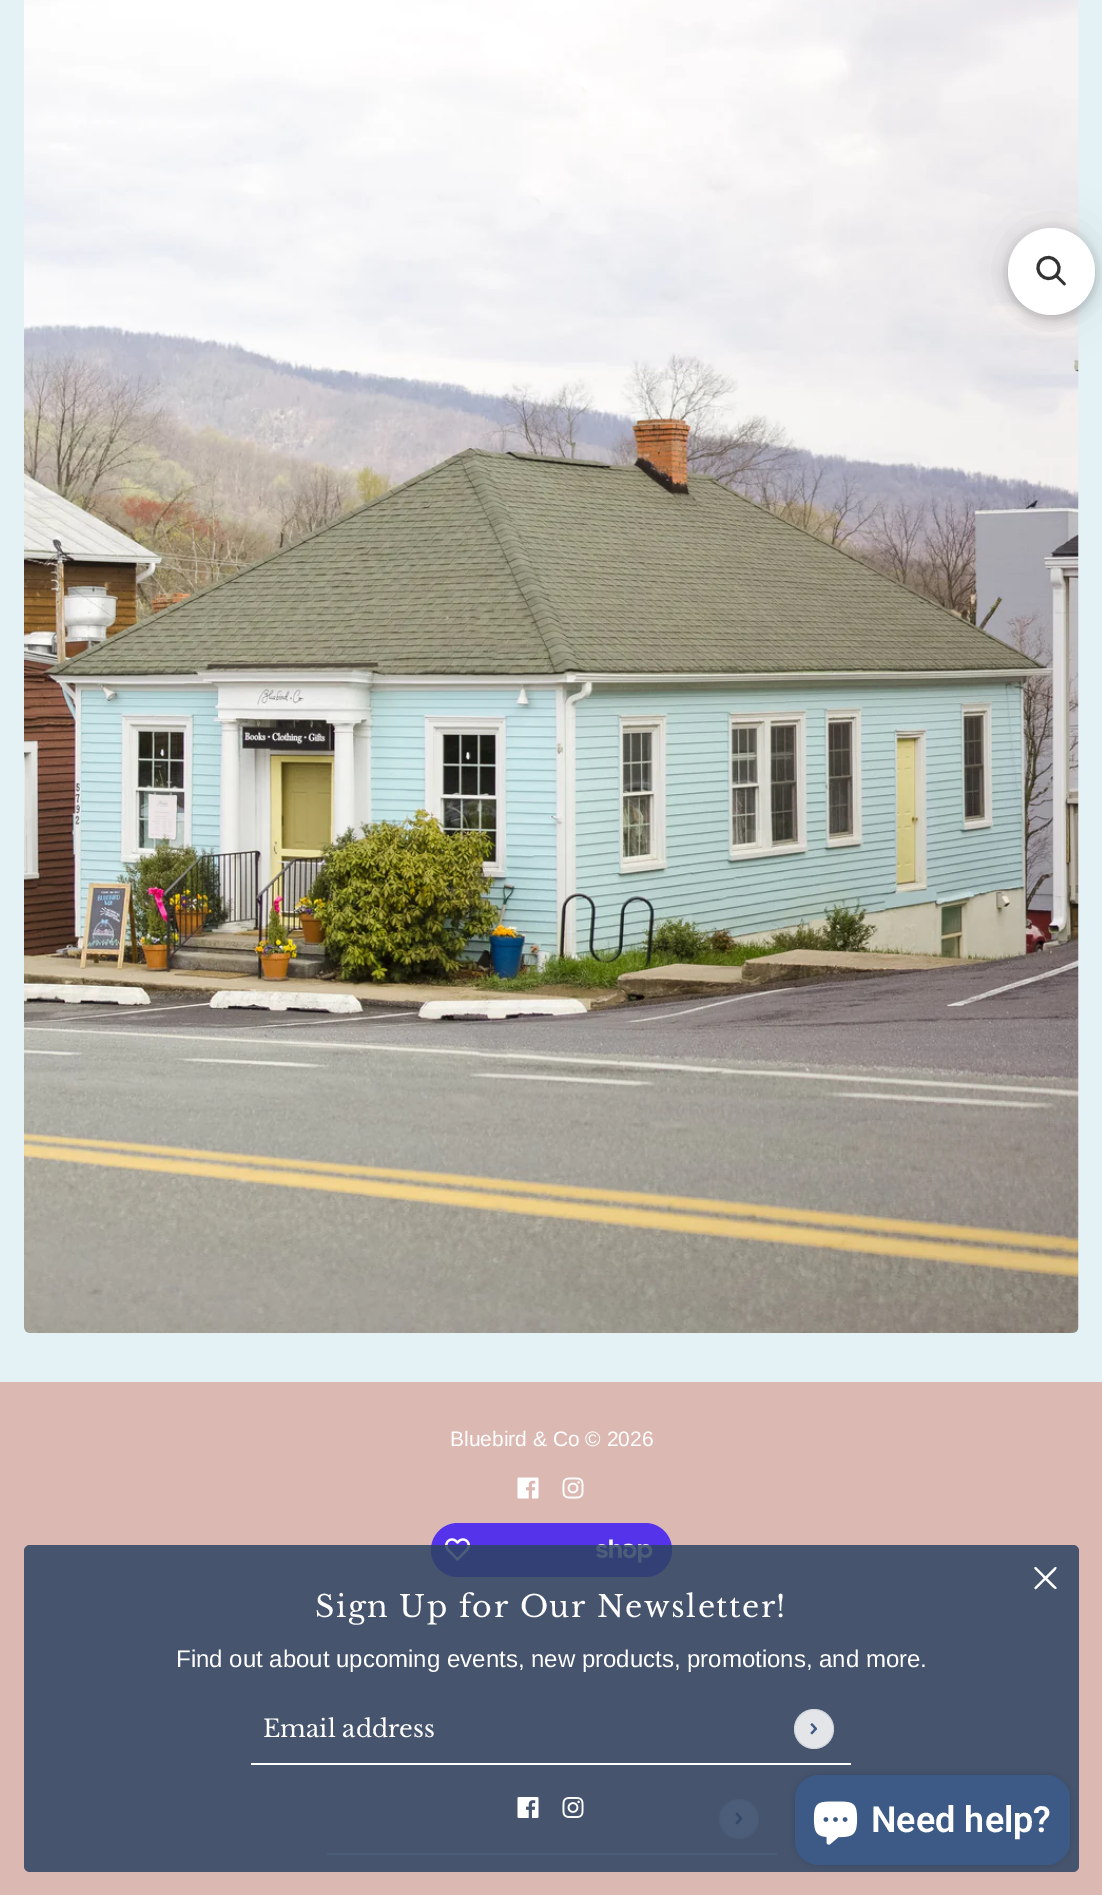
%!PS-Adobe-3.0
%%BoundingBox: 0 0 1102 1895
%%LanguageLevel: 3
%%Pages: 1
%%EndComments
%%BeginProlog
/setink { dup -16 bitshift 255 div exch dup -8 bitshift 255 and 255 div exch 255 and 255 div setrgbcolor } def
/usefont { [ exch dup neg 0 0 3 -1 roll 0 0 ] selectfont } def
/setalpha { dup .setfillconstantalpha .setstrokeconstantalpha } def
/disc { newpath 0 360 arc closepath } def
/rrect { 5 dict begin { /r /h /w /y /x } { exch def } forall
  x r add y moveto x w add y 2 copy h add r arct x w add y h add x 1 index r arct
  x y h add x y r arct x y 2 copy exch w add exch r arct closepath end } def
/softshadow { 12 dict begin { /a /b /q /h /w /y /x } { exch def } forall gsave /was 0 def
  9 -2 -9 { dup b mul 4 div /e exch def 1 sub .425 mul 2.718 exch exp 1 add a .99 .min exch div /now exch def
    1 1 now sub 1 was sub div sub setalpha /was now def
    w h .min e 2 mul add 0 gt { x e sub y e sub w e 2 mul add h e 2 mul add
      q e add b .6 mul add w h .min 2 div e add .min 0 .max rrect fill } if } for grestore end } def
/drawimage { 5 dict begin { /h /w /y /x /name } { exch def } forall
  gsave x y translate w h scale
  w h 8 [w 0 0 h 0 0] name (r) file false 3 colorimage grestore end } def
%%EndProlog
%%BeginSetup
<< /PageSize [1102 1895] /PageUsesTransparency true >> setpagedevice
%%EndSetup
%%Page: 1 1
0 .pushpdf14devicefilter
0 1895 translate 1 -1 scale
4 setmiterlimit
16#E4F2F5 setink
0 0 1102 1895 rectfill
(img1.raw) 24 0 1055 1333 drawimage
16#000000 setink
1008 234 87 87 43.5 6 0.05 softshadow
1008 231 87 87 43.5 6 0.15 softshadow
1008 228 87 87 43.5 22.5 0.1 softshadow
16#FFFFFF setink
1051.5 271.5 43.5 disc fill
16#333333 setink
3 setlinewidth
1041 260.5 moveto 1051 251 1065.5 265.5 1056 275.5 curveto 1046 285 1031.5 270.5 1041 260.5 curveto closepath stroke
1055 276.5 moveto 1057 274.5 lineto 1065.5 283 lineto 1066.5 284.5 1064.5 286 1063.5 285 curveto closepath fill
16#DBB9B2 setink
0 1382 1102 513 rectfill
/LiberationSans-Regular 21 usefont
16#FFFFFF setink
450 1446 moveto (Bluebird & Co © 2026) show
(img2.raw) 517 1477 22 22 drawimage
(img3.raw) 562 1477 22 22 drawimage
16#5433EB setink
431 1523 241 54 27 rrect fill
(img4.raw) 445 1538 25 23 drawimage
(img5.raw) 596 1539 57 24 drawimage
16#FFFFFF setink
327 1853 450 2 rectfill
16#FAF5F3 setink
739 1819 20 disc fill
0.1 setalpha
16#54688C setink
1 setlinewidth
739 1819 19.5 disc stroke
1 setalpha
735.5 1823 moveto 740.5 1817.5 lineto 742 1819 lineto 737 1824.5 lineto closepath fill
737 1812.5 moveto 742 1818 lineto 740.5 1819.5 lineto 735.5 1814 lineto closepath fill
0.85 setalpha
16#2C4262 setink
24 1545 1055 327 6 rrect fill
1 setalpha
16#FFFFFF setink
1036.5 1567.5 moveto 1056.5 1587.5 lineto 1056.5 1588.5 lineto 1055 1590 1053 1587 1051 1585.5 curveto 1034.5 1568.5 lineto 1034 1567.5 1035.5 1566.5 1036.5 1567.5 curveto closepath fill
1035 1587 moveto 1055 1567 lineto 1056 1567 lineto 1057.5 1568.5 1054.5 1570.5 1053 1572.5 curveto 1036 1589 lineto 1035 1589.5 1034 1588 1035 1587 curveto closepath fill
/LibreBaskerville-Regular 30 usefont
315 1617 moveto 1.5 0 (Sign Up for Our Newsletter!) ashow
/LiberationSans-Regular 24 usefont
176 1667 moveto (Find out about upcoming events, new products, promotions, and more.) show
251 1763 600 2 rectfill
/LibreBaskerville-Regular 24 usefont
263 1737 moveto (Email address) show
16#E3E5E9 setink
814 1729 20 disc fill
0.1 setalpha
16#3E5982 setink
814 1729 19.5 disc stroke
1 setalpha
810.5 1733 moveto 815.5 1727.5 lineto 817 1729 lineto 812 1734.5 lineto closepath fill
812 1723 moveto 817 1728.5 lineto 815.5 1730 lineto 810.5 1724.5 lineto closepath fill
(img6.raw) 517 1797 22 21 drawimage
(img7.raw) 562 1797 22 21 drawimage
16#000000 setink
795 1775 275 90 24 4 0.15 softshadow
16#3C5A85 setink
795 1775 275 90 24 rrect fill
(img8.raw) 813 1801 45 44 drawimage
/Roboto-SemiBold 36 usefont
16#FFFFFF setink
871 1832 moveto (Need help?) show
.poppdf14devicefilter showpage
%%EOF
